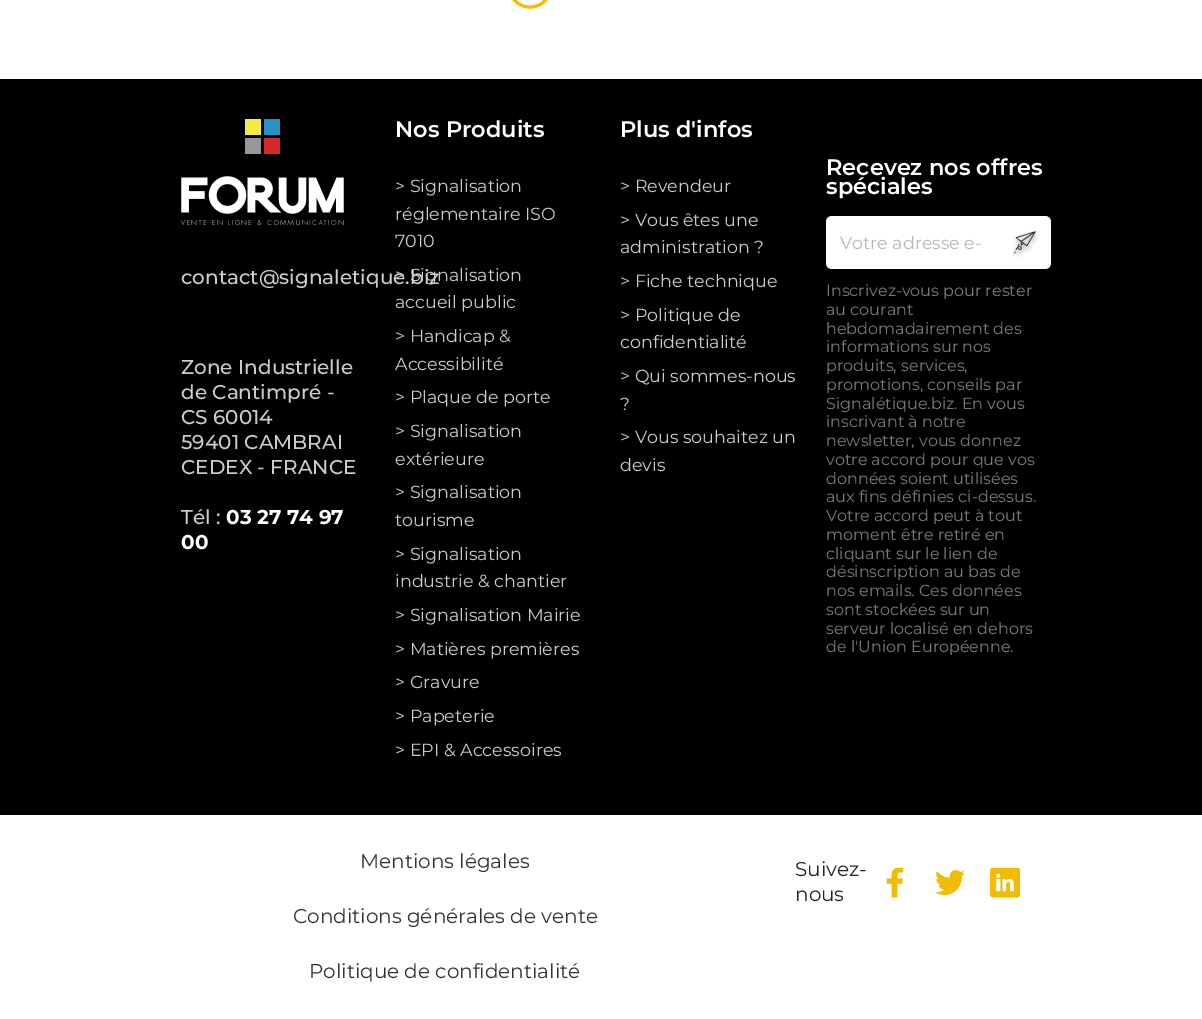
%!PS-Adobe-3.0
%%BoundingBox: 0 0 1202 1019
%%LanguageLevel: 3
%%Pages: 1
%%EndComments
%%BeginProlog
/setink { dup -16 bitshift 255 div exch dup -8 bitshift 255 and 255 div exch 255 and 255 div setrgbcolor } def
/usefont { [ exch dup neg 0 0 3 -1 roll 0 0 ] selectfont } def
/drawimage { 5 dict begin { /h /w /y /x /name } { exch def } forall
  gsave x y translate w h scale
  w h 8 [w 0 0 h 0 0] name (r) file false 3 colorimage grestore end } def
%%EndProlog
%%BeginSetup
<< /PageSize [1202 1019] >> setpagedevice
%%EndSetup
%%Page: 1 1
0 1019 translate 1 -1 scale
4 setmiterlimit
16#FFFFFF setink
0 0 1202 1019 rectfill
(img1.raw) 512 0 36 9 drawimage
16#000000 setink
0 79 1202 736 rectfill
(img2.raw) 181 119 163 106 drawimage
/Montserrat-Medium 20 usefont
16#CCCCCC setink
[
    [(contact@signaletique.biz) 181 284]
    [(Zone Industrielle) 181 374]
    [(de Cantimpré -) 181 399]
    [(CS 60014) 181 424]
    [(59401 CAMBRAI) 181 449]
    [(CEDEX - FRANCE) 181 474]
    [(Tél :) 181 524]
] { aload pop moveto show } forall
/Montserrat-Bold 20 usefont
16#FFFFFF setink
226 524 moveto (03 27 74 97) show
181 549 moveto (00) show
/Montserrat-SemiBold 22.5 usefont
395 137 moveto (Nos Produits) show
/Montserrat-Regular 17.5 usefont
16#CCCCCC setink
[
    [(> Signalisation) 395 192]
    [(réglementaire ISO) 395 220]
    [(7010) 395 247]
    [(> Signalisation) 395 281]
    [(accueil public) 395 308]
    [(> Handicap &) 395 342]
    [(Accessibilité) 395 370]
    [(> Plaque de porte) 395 403]
    [(> Signalisation) 395 437]
    [(extérieure) 395 465]
    [(> Signalisation) 395 498]
    [(tourisme) 395 526]
    [(> Signalisation) 395 560]
    [(industrie & chantier) 395 587]
    [(> Signalisation Mairie) 395 621]
    [(> Matières premières) 395 655]
    [(> Gravure) 395 688]
    [(> Papeterie) 395 722]
    [(> EPI & Accessoires) 395 756]
] { aload pop moveto show } forall
/Montserrat-SemiBold 22.5 usefont
16#FFFFFF setink
620 137 moveto (Plus d'infos) show
/Montserrat-Regular 17.5 usefont
16#CCCCCC setink
[
    [(> Revendeur) 620 192]
    [(> Vous êtes une) 620 226]
    [(administration ?) 620 253]
    [(> Fiche technique) 620 287]
    [(> Politique de) 620 321]
    [(confidentialité) 620 348]
    [(> Qui sommes-nous) 620 382]
    [(?) 620 410]
    [(> Vous souhaitez un) 620 443]
    [(devis) 620 471]
] { aload pop moveto show } forall
/Montserrat-SemiBold 22.5 usefont
16#FFFFFF setink
826 175 moveto (Recevez nos offres) show
826 194 moveto (spéciales) show
832 216 moveto 999 216 lineto 999 269 lineto 832 269 lineto 828.5 269 826 266.5 826 263 curveto 826 222 lineto 826 218.5 828.5 216 832 216 curveto closepath fill
/Montserrat-Regular 17.5 usefont
16#B7B7B7 setink
840 249 moveto (Votre adresse e-) show
16#FFFFFF setink
999 216 moveto 1045 216 lineto 1048.5 216 1051 218.5 1051 222 curveto 1051 263 lineto 1051 266.5 1048.5 269 1045 269 curveto 999 269 lineto closepath fill
(img3.raw) 1012 231 27 27 drawimage
/Montserrat-Regular 16 usefont
16#7A7A7A setink
[
    [(Inscrivez-vous pour rester) 826 296]
    [(au courant) 826 315]
    [(hebdomadairement des) 826 334]
    [(informations sur nos) 826 352]
    [(produits, services,) 826 371]
    [(promotions, conseils par) 826 390]
    [(Signalétique.biz. En vous) 826 409]
    [(inscrivant à notre) 826 427]
    [(newsletter, vous donnez) 826 446]
    [(votre accord pour que vos) 826 465]
    [(données soient utilisées) 826 484]
    [(aux fins définies ci-dessus.) 826 502]
    [(Votre accord peut à tout) 826 521]
    [(moment être retiré en) 826 540]
    [(cliquant sur le lien de) 826 559]
    [(désinscription au bas de) 826 577]
    [(nos emails. Ces données) 826 596]
    [(sont stockées sur un) 826 615]
    [(serveur localisé en dehors) 826 634]
    [(de l'Union Européenne.) 826 652]
] { aload pop moveto show } forall
/Montserrat-Regular 20 usefont
16#333333 setink
[
    [(Mentions légales) 360 868]
    [(Conditions générales de vente) 293 923]
    [(Politique de confidentialité) 309 978]
] { aload pop moveto show } forall
16#232323 setink
795 876 moveto (Suivez-) show
795 901 moveto (nous) show
(img4.raw) 886 868 18 30 drawimage
(img5.raw) 935 870 30 25 drawimage
(img6.raw) 990 868 30 30 drawimage
showpage
%%EOF
